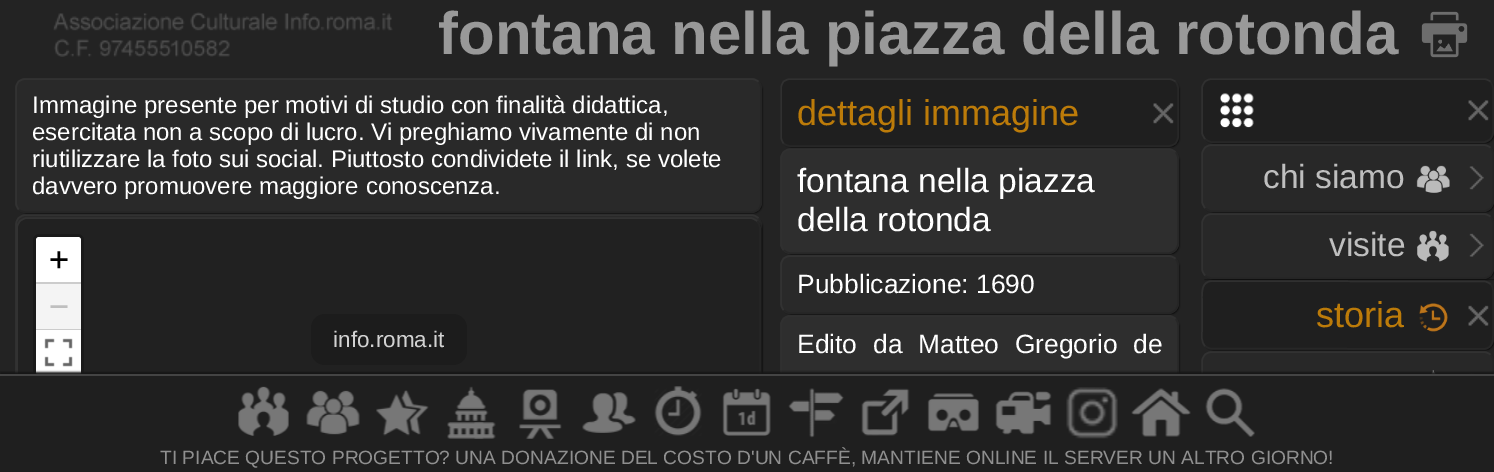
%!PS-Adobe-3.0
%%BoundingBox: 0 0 1494 472
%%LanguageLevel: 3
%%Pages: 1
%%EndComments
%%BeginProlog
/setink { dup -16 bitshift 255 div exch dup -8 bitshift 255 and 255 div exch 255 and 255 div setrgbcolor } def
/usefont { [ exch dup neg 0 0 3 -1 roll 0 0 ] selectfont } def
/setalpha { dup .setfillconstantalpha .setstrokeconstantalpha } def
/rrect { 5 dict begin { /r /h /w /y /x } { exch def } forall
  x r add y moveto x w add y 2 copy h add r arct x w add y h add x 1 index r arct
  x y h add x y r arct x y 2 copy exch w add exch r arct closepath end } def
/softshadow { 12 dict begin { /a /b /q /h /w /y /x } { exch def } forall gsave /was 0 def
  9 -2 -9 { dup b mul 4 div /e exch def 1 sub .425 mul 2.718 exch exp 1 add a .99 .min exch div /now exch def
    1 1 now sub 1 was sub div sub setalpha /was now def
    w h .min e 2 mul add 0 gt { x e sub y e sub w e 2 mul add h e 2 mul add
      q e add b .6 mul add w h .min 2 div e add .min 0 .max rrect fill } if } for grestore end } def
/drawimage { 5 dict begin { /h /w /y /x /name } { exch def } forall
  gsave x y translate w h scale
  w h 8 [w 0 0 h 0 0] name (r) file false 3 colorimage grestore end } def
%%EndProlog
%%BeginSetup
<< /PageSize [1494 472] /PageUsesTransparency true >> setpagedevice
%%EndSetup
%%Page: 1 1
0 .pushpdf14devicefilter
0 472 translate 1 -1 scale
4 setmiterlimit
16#232323 setink
0 0 1494 472 rectfill
16#000000 setink
18 81 744 132 9 1 1 softshadow
16#292929 setink
15 78 747 135 11 rrect fill
16#252525 setink
1.5 setlinewidth
758.5 81.5 moveto 760 83.5 761 86 761 88.5 curveto 761 202.5 lineto 761 205 760 207.5 758.5 209.5 curveto 756.5 211 754 212 751.5 212 curveto 25.5 212 lineto 23 212 20.5 211 18.5 209.5 curveto stroke
16#323232 setink
18.5 209.5 moveto 17 207.5 16 205 16 202.5 curveto 16 88.5 lineto 16 86 17 83.5 18.5 81.5 curveto 20.5 80 23 79 25.5 79 curveto 751.5 79 lineto 754 79 756.5 80 758.5 81.5 curveto stroke
/LiberationSans-Regular 24 usefont
16#FFFFFF setink
[
    [(Immagine presente per motivi di studio con finalità didattica,) 32 113]
    [(esercitata non a scopo di lucro. Vi preghiamo vivamente di non) 32 140]
    [(riutilizzare la foto sui social. Piuttosto condividete il link, se volete) 32 167]
    [(davvero promuovere maggiore conoscenza.) 32 194]
] { aload pop moveto show } forall
16#000000 setink
18 218 744 246 9 1 1 softshadow
16#292929 setink
15 215 747 249 11 rrect fill
16#252525 setink
758.5 218 moveto 760 220 761 222.5 761 225 curveto 761 453 lineto 761 455.5 760 458 758.5 460 curveto 756.5 461.5 754 463 751.5 463 curveto 25.5 463 lineto 23 463 20.5 461.5 18.5 460 curveto stroke
16#323232 setink
18.5 460 moveto 17 458 16 455.5 16 453 curveto 16 225 lineto 16 222.5 17 220 18.5 218 curveto 20.5 216.5 23 215 25.5 215 curveto 751.5 215 lineto 754 215 756.5 216.5 758.5 218 curveto stroke
gsave
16 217 moveto 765 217 lineto 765 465 lineto 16 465 lineto closepath 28 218 moveto 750 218 lineto 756 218 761 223 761 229 curveto 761 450 lineto 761 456 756 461 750 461 curveto 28 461 lineto 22 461 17 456 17 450 curveto 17 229 lineto 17 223 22 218 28 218 curveto closepath eoclip newpath
16#000000 setink
20 221 741 240 9 1 1 softshadow
grestore
0.2 setalpha
16#000000 setink
17 218 744 243 11 rrect fill
1 setalpha
16#252525 setink
757 221 moveto 758.5 223 760 225.5 760 228 curveto 760 450 lineto 760 452.5 758.5 455 757 457 curveto 755 458.5 752.5 460 750 460 curveto 27 460 lineto 24.5 460 22 458.5 20 457 curveto stroke
gsave
17 216 744 246 9 rrect clip newpath
16#323232 setink
20 457 moveto 18.5 455 17 452.5 17 450 curveto 17 228 lineto 17 225.5 18.5 223 20 221 curveto 22 219.5 24.5 218 27 218 curveto 750 218 lineto 752.5 218 755 219.5 757 221 curveto stroke
grestore
16#1A1A1A setink
39 234 moveto 78 234 lineto 81 234 84 237 84 240 curveto 84 372 lineto 84 375 81 378 78 378 curveto 39 378 lineto 36 378 33 375 33 372 curveto 33 240 lineto 33 237 36 234 39 234 curveto closepath fill
16#FFFFFF setink
39 237 moveto 78 237 lineto 79.5 237 81 238.5 81 240 curveto 81 284 lineto 36 284 lineto 36 240 lineto 36 238.5 37.5 237 39 237 curveto closepath fill
16#CCCCCC setink
36 282 45 2 rectfill
/DejaVuSansMono-Regular 33 usefont
16#000000 setink
49 270 moveto (+) show
16#F4F4F4 setink
36 284 45 45 rectfill
16#CCCCCC setink
36 329 45 1 rectfill
16#BFBFBF setink
49 317 moveto (−) show
16#FFFFFF setink
36 330 moveto 81 330 lineto 81 372 lineto 81 373.5 79.5 375 78 375 curveto 39 375 lineto 37.5 375 36 373.5 36 372 curveto closepath fill
(img1.raw) 44 338 29 29 drawimage
0.15 setalpha
16#000000 setink
311 314 156 51 14 rrect fill
/LiberationSans-Regular 22.5 usefont
1 setalpha
16#D2D2D2 setink
333 347 moveto (info.roma.it) show
(img2.raw) 53 12 340 45 drawimage
/LiberationSans-Bold 60 usefont
16#999999 setink
438 54 moveto (fontana nella piazza della rotonda) show
(img3.raw) 1421 11 47 47 drawimage
16#000000 setink
1205 81 289 62 9 1 1 softshadow
16#1F1F1F setink
1202 78 292 65 11 rrect fill
(img4.raw) 1468 100 21 21 drawimage
16#272727 setink
1490.5 81.5 moveto 1492 83.5 1493 86 1493 88.5 curveto 1493 132 lineto 1493 134.5 1492 137 1490.5 139 curveto 1488.5 140.5 1486 142 1483.5 142 curveto 1212 142 lineto 1209.5 142 1207 140.5 1205 139 curveto stroke
16#303030 setink
1205 139 moveto 1203.5 137 1202 134.5 1202 132 curveto 1202 88.5 lineto 1202 86 1203.5 83.5 1205 81.5 curveto 1207 80 1209.5 79 1212 79 curveto 1483.5 79 lineto 1486 79 1488.5 80 1490.5 81.5 curveto stroke
(img5.raw) 1220 93 34 35 drawimage
gsave
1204 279 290 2 rectclip
16#000000 setink
1205 147 289 132 0 1 1 softshadow
grestore
16#000000 setink
1205 147 289 65 9 1 1 softshadow
16#282828 setink
1202 144 292 68 11 rrect fill
(img6.raw) 1469 166 15 24 drawimage
16#252525 setink
1490.5 147.5 moveto 1492 149.5 1493 152 1493 154.5 curveto 1493 201 lineto 1493 203.5 1492 206 1490.5 208 curveto 1488.5 209.5 1486 211 1483.5 211 curveto 1212 211 lineto 1209.5 211 1207 209.5 1205 208 curveto stroke
16#323232 setink
1205 208 moveto 1203.5 206 1202 203.5 1202 201 curveto 1202 154.5 lineto 1202 152 1203.5 149.5 1205 147.5 curveto 1207 146 1209.5 145 1212 145 curveto 1483.5 145 lineto 1486 145 1488.5 146 1490.5 147.5 curveto stroke
/LiberationSans-Regular 33.5 usefont
16#BFBFBF setink
1263 188 moveto (chi siamo) show
(img7.raw) 1416 165 34 28 drawimage
16#000000 setink
1205 216 289 63 9 1 1 softshadow
16#282828 setink
1202 213 292 66 11 rrect fill
(img8.raw) 1469 233 15 24 drawimage
16#252525 setink
1490.5 216.5 moveto 1492 218.5 1493 221 1493 223.5 curveto 1493 268.5 lineto 1493 271 1492 273.5 1490.5 275.5 curveto 1488.5 277 1486 278 1483.5 278 curveto 1212 278 lineto 1209.5 278 1207 277 1205 275.5 curveto stroke
16#323232 setink
1205 275.5 moveto 1203.5 273.5 1202 271 1202 268.5 curveto 1202 223.5 lineto 1202 221 1203.5 218.5 1205 216.5 curveto 1207 215 1209.5 214 1212 214 curveto 1483.5 214 lineto 1486 214 1488.5 215 1490.5 216.5 curveto stroke
16#BFBFBF setink
1329 256 moveto (visite) show
(img9.raw) 1417 230 32 32 drawimage
16#000000 setink
1205 284 289 66 9 1 1 softshadow
16#1F1F1F setink
1202 281 292 69 11 rrect fill
(img10.raw) 1468 305 21 21 drawimage
16#272727 setink
1490.5 284 moveto 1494.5 288 1493 294 1493 299 curveto 1493 331 lineto 1493 338.5 1494 348.5 1483.5 349 curveto 1210 348.5 lineto 1208 348 1206.5 347 1205 346 curveto stroke
16#303030 setink
1205 346 moveto 1201 342 1202 336 1202 331 curveto 1202 299 lineto 1202 291.5 1201.5 281.5 1212 281 curveto 1485.5 281.5 lineto 1487.5 282 1489 283 1490.5 284 curveto stroke
/LiberationSans-Regular 36 usefont
16#BC7B09 setink
1316 327 moveto (storia) show
(img11.raw) 1419 303 29 29 drawimage
16#000000 setink
1205 354 289 65 9 1 1 softshadow
16#282828 setink
1202 351 292 68 11 rrect fill
(img12.raw) 1469 373 5 1 drawimage
16#252525 setink
1490.5 354.5 moveto 1492 356.5 1493 359 1493 361.5 curveto 1493 408 lineto 1493 410.5 1492 413 1490.5 415 curveto 1488.5 416.5 1486 418 1483.5 418 curveto 1212 418 lineto 1209.5 418 1207 416.5 1205 415 curveto stroke
16#323232 setink
1205 415 moveto 1203.5 413 1202 410.5 1202 408 curveto 1202 361.5 lineto 1202 359 1203.5 356.5 1205 354.5 curveto 1207 353 1209.5 352 1212 352 curveto 1483.5 352 lineto 1486 352 1488.5 353 1490.5 354.5 curveto stroke
(img13.raw) 1431 370 5 4 drawimage
16#000000 setink
783 81 396 66 9 1 1 softshadow
16#1F1F1F setink
780 78 399 69 11 rrect fill
(img4.raw) 1153 103 21 21 drawimage
16#272727 setink
1175.5 81.5 moveto 1177 83.5 1178 86 1178 88.5 curveto 1178 136.5 lineto 1178 139 1177 141.5 1175.5 143.5 curveto 1173.5 145 1171 146 1168.5 146 curveto 790.5 146 lineto 788 146 785.5 145 783.5 143.5 curveto stroke
16#303030 setink
783.5 143.5 moveto 782 141.5 781 139 781 136.5 curveto 781 88.5 lineto 781 86 782 83.5 783.5 81.5 curveto 785.5 80 788 79 790.5 79 curveto 1168.5 79 lineto 1171 79 1173.5 80 1175.5 81.5 curveto stroke
16#BC7B09 setink
797 125 moveto (dettagli immagine) show
16#000000 setink
783 152 396 102 9 1 1 softshadow
16#2E2E2E setink
780 149 399 105 11 rrect fill
16#272727 setink
1175.5 152 moveto 1177 154 1178 156.5 1178 159 curveto 1178 243 lineto 1178 245.5 1177 248 1175.5 250 curveto 1173.5 251.5 1171 253 1168.5 253 curveto 790.5 253 lineto 788 253 785.5 251.5 783.5 250 curveto stroke
16#303030 setink
783.5 250 moveto 782 248 781 245.5 781 243 curveto 781 159 lineto 781 156.5 782 154 783.5 152 curveto 785.5 150.5 788 149 790.5 149 curveto 1168.5 149 lineto 1171 149 1173.5 150.5 1175.5 152 curveto stroke
/LiberationSans-Regular 33.5 usefont
16#FFFFFF setink
797 192 moveto (fontana nella piazza) show
797 231 moveto (della rotonda) show
16#000000 setink
783 258 396 56 9 1 1 softshadow
16#292929 setink
780 255 399 59 11 rrect fill
16#252525 setink
1175.5 258.5 moveto 1177 260.5 1178 263 1178 265.5 curveto 1178 303 lineto 1178 305.5 1177 308 1175.5 310 curveto 1173.5 311.5 1171 313 1168.5 313 curveto 790.5 313 lineto 788 313 785.5 311.5 783.5 310 curveto stroke
16#323232 setink
783.5 310 moveto 782 308 781 305.5 781 303 curveto 781 265.5 lineto 781 263 782 260.5 783.5 258.5 curveto 785.5 257 788 256 790.5 256 curveto 1168.5 256 lineto 1171 256 1173.5 257 1175.5 258.5 curveto stroke
/LiberationSans-Regular 26.4 usefont
16#FFFFFF setink
797 293 moveto (Pubblicazione: 1690) show
16#000000 setink
783 318 396 87 9 1 1 softshadow
16#2E2E2E setink
780 315 399 90 11 rrect fill
16#272727 setink
1175.5 318.5 moveto 1177 320.5 1178 323 1178 325.5 curveto 1178 394.5 lineto 1178 397 1177 399.5 1175.5 401.5 curveto 1173.5 403 1171 404 1168.5 404 curveto 790.5 404 lineto 788 404 785.5 403 783.5 401.5 curveto stroke
16#303030 setink
783.5 401.5 moveto 782 399.5 781 397 781 394.5 curveto 781 325.5 lineto 781 323 782 320.5 783.5 318.5 curveto 785.5 317 788 316 790.5 316 curveto 1168.5 316 lineto 1171 316 1173.5 317 1175.5 318.5 curveto stroke
16#FFFFFF setink
797 353 moveto 8.5 0 32 (Edito da Matteo Gregorio de) widthshow
16#151515 setink
0 372 1494 99 0 1 1 softshadow
16#1F1F1F setink
0 376 1494 95 rectfill
16#444444 setink
0 374 1494 2 rectfill
(img14.raw) 238 386 51 50 drawimage
(img15.raw) 306 390 54 45 drawimage
(img16.raw) 376 390 53 46 drawimage
(img17.raw) 447 386 49 53 drawimage
(img18.raw) 519 389 43 50 drawimage
(img19.raw) 582 392 54 41 drawimage
(img20.raw) 654 386 48 50 drawimage
(img21.raw) 722 388 49 48 drawimage
(img22.raw) 788 388 56 50 drawimage
(img23.raw) 861 388 49 48 drawimage
(img24.raw) 927 393 52 39 drawimage
(img25.raw) 995 391 57 44 drawimage
(img26.raw) 1066 387 52 52 drawimage
(img27.raw) 1131 388 60 49 drawimage
(img28.raw) 1205 388 50 49 drawimage
/LiberationSans-Regular 19.2 usefont
16#8F8F8F setink
160 464 moveto (TI PIACE QUESTO PROGETTO? UNA DONAZIONE DEL COSTO D'UN CAFFÈ, MANTIENE ONLINE IL SERVER UN ALTRO GIORNO!) show
.poppdf14devicefilter showpage
%%EOF
